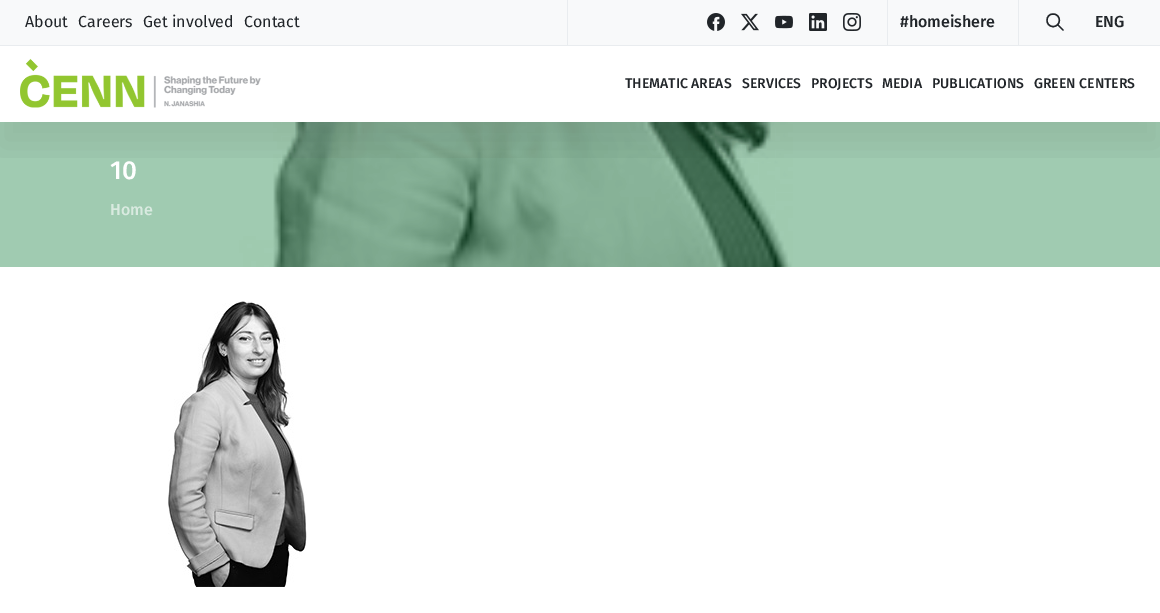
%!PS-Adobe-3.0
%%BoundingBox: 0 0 1160 613
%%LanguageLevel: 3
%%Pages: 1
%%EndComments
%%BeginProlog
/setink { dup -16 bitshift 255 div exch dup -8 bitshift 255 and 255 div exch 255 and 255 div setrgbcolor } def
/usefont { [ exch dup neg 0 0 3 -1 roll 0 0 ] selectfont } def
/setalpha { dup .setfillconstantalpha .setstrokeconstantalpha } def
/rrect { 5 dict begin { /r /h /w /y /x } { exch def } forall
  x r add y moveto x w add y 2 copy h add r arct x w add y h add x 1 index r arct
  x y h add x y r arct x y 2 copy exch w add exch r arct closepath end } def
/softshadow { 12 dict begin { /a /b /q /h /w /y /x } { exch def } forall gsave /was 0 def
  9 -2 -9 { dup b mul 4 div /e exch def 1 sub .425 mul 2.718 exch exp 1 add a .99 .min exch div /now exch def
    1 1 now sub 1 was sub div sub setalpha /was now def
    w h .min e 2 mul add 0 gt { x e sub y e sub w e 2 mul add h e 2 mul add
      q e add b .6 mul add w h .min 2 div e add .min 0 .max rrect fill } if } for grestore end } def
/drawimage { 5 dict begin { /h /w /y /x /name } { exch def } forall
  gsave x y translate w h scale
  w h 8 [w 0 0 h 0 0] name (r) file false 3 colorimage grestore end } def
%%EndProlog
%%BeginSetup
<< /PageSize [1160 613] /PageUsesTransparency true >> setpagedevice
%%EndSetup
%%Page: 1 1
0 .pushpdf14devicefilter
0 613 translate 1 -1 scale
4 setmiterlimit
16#FFFFFF setink
0 0 1160 613 rectfill
16#117D3B setink
0 122 1160 145 rectfill
(img7.raw) 0 122 1160 145 drawimage
gsave
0 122 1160 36 rectclip
16#000000 setink
0 70 1160 76 0 17.5 0.08 softshadow
grestore
16#F8F9FA setink
0 0 1160 45 rectfill
/FiraSans-Regular 16 usefont
16#212529 setink
[
    [(About) 25 27]
    [(Careers) 78 27]
    [(Get involved) 143 27]
    [(Contact) 244 27]
] { aload pop moveto show } forall
16#E9ECEF setink
567 0 1 45 rectfill
(img1.raw) 707 13 18 18 drawimage
(img2.raw) 741 13 18 18 drawimage
(img3.raw) 775 15 18 14 drawimage
(img4.raw) 809 13 18 18 drawimage
(img5.raw) 843 13 18 18 drawimage
887 0 1 45 rectfill
/FiraSans-Medium 16 usefont
16#212529 setink
900 27 moveto (#homeishere) show
16#E9ECEF setink
1018 0 1 45 rectfill
16#212529 setink
1.4 setlinewidth
1 setlinecap
1 setlinejoin
1053 26.5 moveto 1061.5 26.5 1061.5 14 1053 14 curveto 1045 14 1045 26.5 1053 26.5 curveto closepath 1057.5 24.5 moveto 1063 30 lineto stroke
1095 27 moveto (ENG) show
16#E9ECEF setink
0 45 1160 1 rectfill
(img6.raw) 20 58 241 50 drawimage
/FiraSans-Medium 14 usefont
16#212529 setink
[
    [(THEMATIC AREAS) 625 88]
    [(SERVICES) 742 88]
    [(PROJECTS) 811 88]
    [(MEDIA) 882 88]
    [(PUBLICATIONS) 932 88]
    [(GREEN CENTERS) 1034 88]
] { aload pop moveto show } forall
/FiraSans-Medium 26 usefont
16#FFFFFF setink
110 179 moveto (10) show
/FiraSans-Medium 16 usefont
16#D9EAE0 setink
110 215 moveto (Home) show
(img8.raw) 168 301 139 286 drawimage
.poppdf14devicefilter showpage
%%EOF
